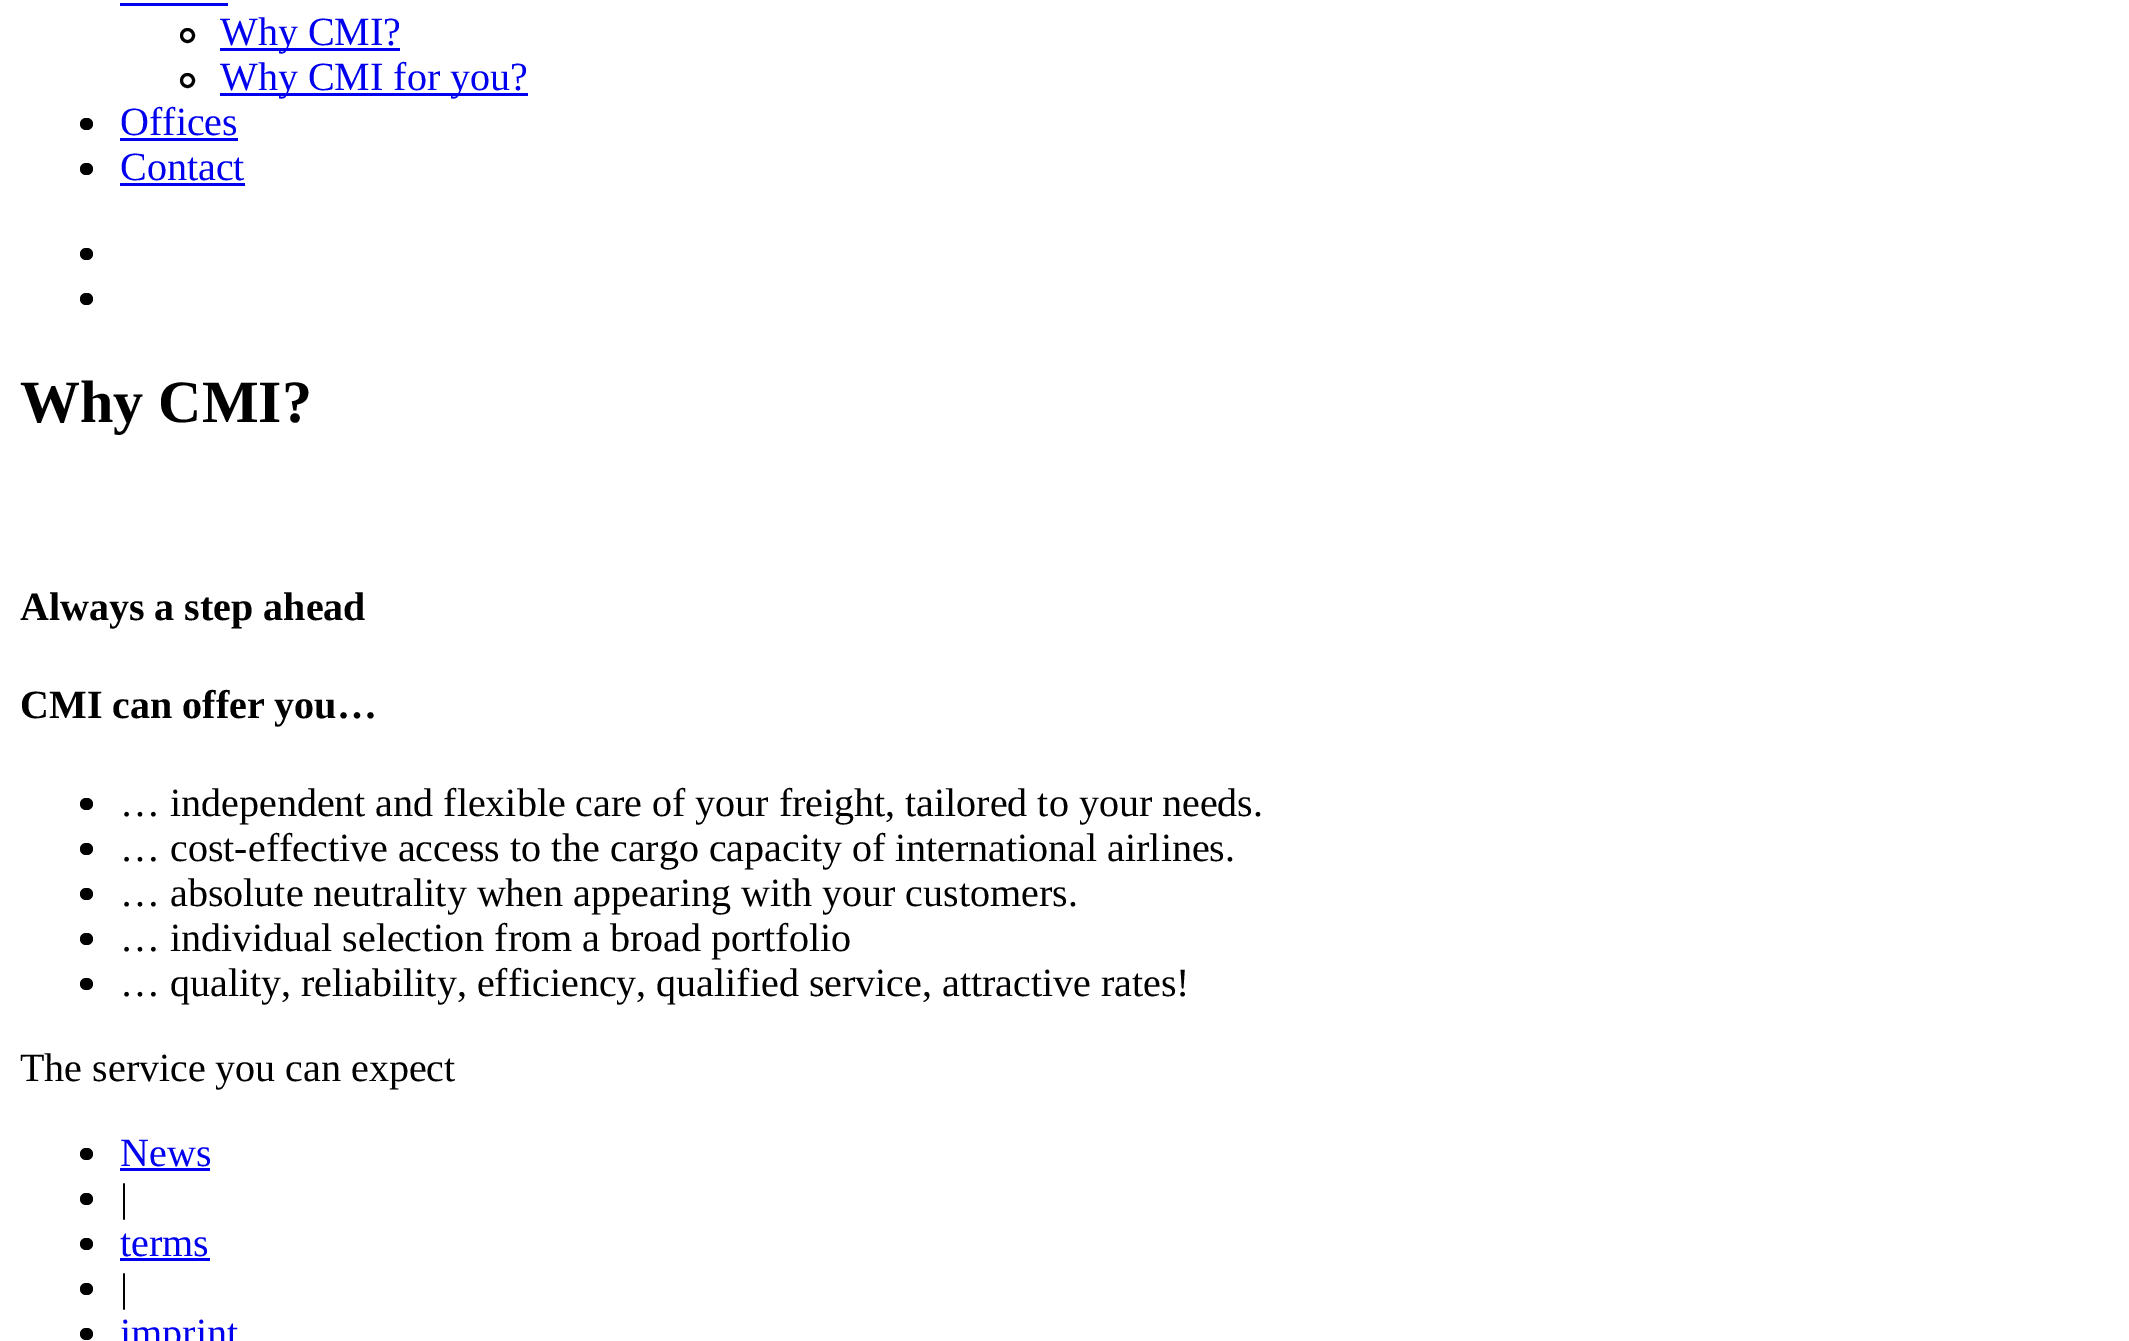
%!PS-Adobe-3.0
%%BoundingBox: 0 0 2129 1341
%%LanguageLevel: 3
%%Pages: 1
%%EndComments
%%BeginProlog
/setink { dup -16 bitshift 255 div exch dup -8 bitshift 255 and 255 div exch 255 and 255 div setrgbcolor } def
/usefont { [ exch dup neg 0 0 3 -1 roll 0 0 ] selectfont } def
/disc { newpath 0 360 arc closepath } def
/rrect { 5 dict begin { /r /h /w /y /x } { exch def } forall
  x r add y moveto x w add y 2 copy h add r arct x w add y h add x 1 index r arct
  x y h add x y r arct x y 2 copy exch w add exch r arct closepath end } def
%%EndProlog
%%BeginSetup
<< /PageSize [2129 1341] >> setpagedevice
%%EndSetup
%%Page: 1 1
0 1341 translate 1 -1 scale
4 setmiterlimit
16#FFFFFF setink
0 0 2129 1341 rectfill
16#0000EE setink
120 3 108 3 rectfill
16#000000 setink
3 setlinewidth
187.5 35.5 6 disc stroke
16#0000EE setink
220 48 180 3 rectfill
/LiberationSerif-Regular 40 usefont
220 45 moveto (Why CMI?) show
16#000000 setink
187.5 80.5 6 disc stroke
16#0000EE setink
220 93 308 3 rectfill
220 90 moveto (Why CMI for you?) show
16#000000 setink
80 118 13 12 6 rrect fill
16#0000EE setink
120 135 moveto (Offices) show
120 138 118 3 rectfill
16#000000 setink
80 163 13 12 6 rrect fill
16#0000EE setink
120 180 moveto (Contact) show
120 183 125 3 rectfill
16#000000 setink
80 248 13 12 6 rrect fill
80 293 13 12 6 rrect fill
/LiberationSerif-Bold 60 usefont
20 422 moveto (Why CMI?) show
/LiberationSerif-Bold 40 usefont
20 620 moveto (Always a step ahead) show
20 718 moveto (CMI can offer you…) show
80 798 13 12 6 rrect fill
/LiberationSerif-Regular 40 usefont
120 816 moveto (… independent and flexible care of your freight, tailored to your needs.) show
80 843 13 12 6 rrect fill
120 861 moveto (… cost-effective access to the cargo capacity of international airlines.) show
80 888 13 12 6 rrect fill
120 906 moveto (… absolute neutrality when appearing with your customers.) show
80 933 13 12 6 rrect fill
120 951 moveto (… individual selection from a broad portfolio) show
80 978 13 12 6 rrect fill
120 996 moveto (… quality, reliability, efficiency, qualified service, attractive rates!) show
20 1081 moveto (The service you can expect) show
80 1148 13 12 6 rrect fill
16#0000EE setink
120 1166 moveto (News) show
120 1168 90 3 rectfill
16#000000 setink
80 1193 13 12 6 rrect fill
120 1211 moveto (|) show
80 1238 13 12 6 rrect fill
16#0000EE setink
120 1256 moveto (terms) show
120 1258 90 3 rectfill
16#000000 setink
80 1283 13 12 6 rrect fill
120 1301 moveto (|) show
80 1328 13 12 6 rrect fill
16#0000EE setink
120 1346 moveto (imprint) show
showpage
%%EOF
